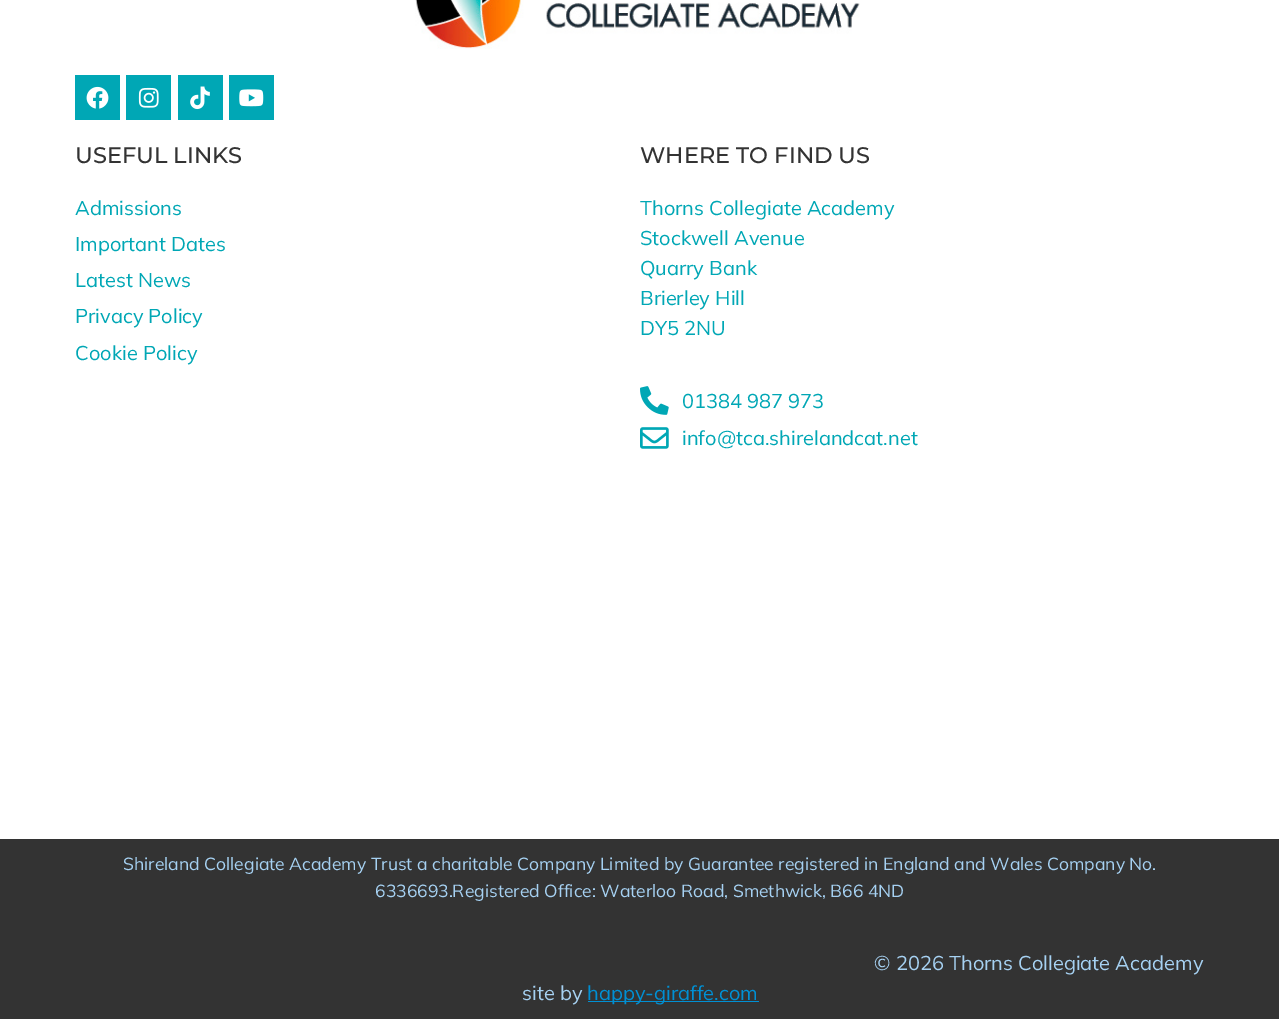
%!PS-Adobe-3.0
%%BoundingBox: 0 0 1279 1019
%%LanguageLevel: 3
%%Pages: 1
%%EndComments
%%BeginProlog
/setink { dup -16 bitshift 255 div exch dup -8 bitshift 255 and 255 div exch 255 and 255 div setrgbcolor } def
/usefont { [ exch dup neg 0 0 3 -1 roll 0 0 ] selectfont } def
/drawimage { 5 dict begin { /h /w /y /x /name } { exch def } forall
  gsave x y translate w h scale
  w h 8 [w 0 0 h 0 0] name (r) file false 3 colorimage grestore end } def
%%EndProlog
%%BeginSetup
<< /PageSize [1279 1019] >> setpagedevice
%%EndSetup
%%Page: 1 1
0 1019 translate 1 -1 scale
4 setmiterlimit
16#FFFFFF setink
0 0 1279 1019 rectfill
(img1.raw) 415 0 445 49 drawimage
16#00A7B5 setink
75 75 45 45 rectfill
(img2.raw) 86 86 23 23 drawimage
126 75 45 45 rectfill
(img3.raw) 138 87 21 21 drawimage
178 75 45 45 rectfill
(img4.raw) 190 86 20 24 drawimage
229 75 45 45 rectfill
(img5.raw) 239 89 25 18 drawimage
/Montserrat-Medium 22.5 usefont
16#333333 setink
75 163 moveto (USEFUL LINKS) show
/Mulish-Regular 20 usefont
16#00A7B5 setink
[
    [(Admissions) 75 215]
    [(Important Dates) 75 251]
    [(Latest News) 75 287]
    [(Privacy Policy) 75 323]
    [(Cookie Policy) 75 360]
] { aload pop moveto show } forall
/Montserrat-Medium 22.5 usefont
16#333333 setink
640 163 moveto (WHERE TO FIND US) show
/Mulish-Regular 20 usefont
16#00A7B5 setink
[
    [(Thorns Collegiate Academy) 640 215]
    [(Stockwell Avenue) 640 245]
    [(Quarry Bank) 640 275]
    [(Brierley Hill) 640 305]
    [(DY5 2NU) 640 335]
] { aload pop moveto show } forall
(img6.raw) 640 386 29 29 drawimage
682 408 moveto (01384 987 973) show
(img7.raw) 640 427 29 22 drawimage
682 445 moveto (info@tca.shirelandcat.net) show
16#333333 setink
0 839 1279 180 rectfill
/Mulish-Regular 17.5 usefont
16#A6D1F2 setink
123 870 moveto (Shireland Collegiate Academy Trust a charitable Company Limited by Guarantee registered in England and Wales Company No.) show
375 897 moveto (6336693.Registered Office: Waterloo Road, Smethwick, B66 4ND) show
/Mulish-Regular 20 usefont
874 970 moveto (© 2026 Thorns Collegiate Academy) show
522 1000 moveto (site by) show
16#0090D4 setink
588 1001 171 1 rectfill
587 1000 moveto (happy-giraffe.com) show
showpage
%%EOF
